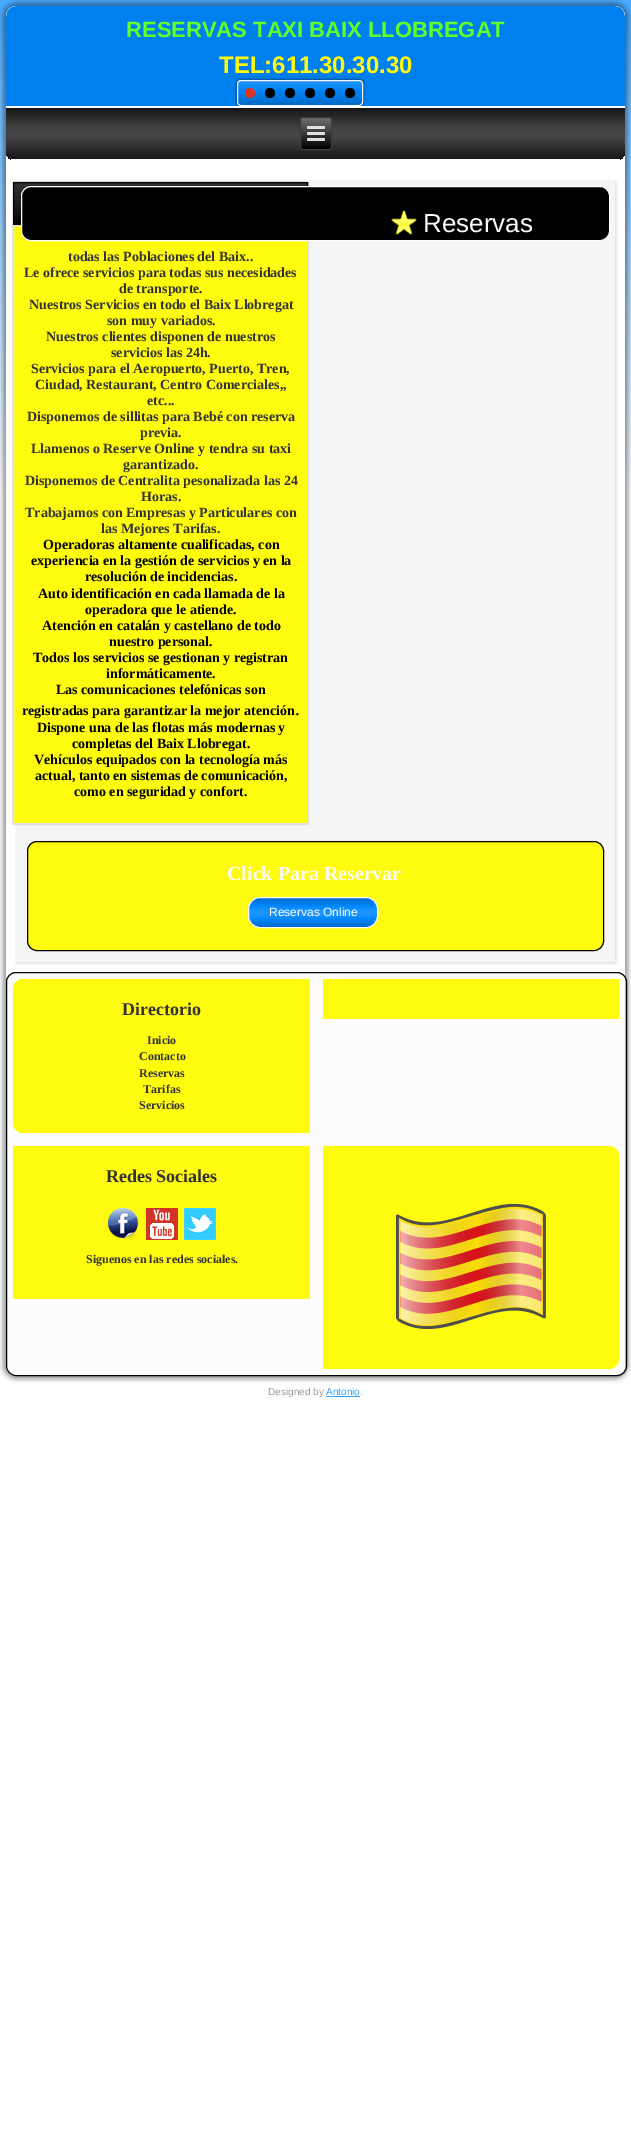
%!PS-Adobe-3.0
%%BoundingBox: 0 0 631 2154
%%LanguageLevel: 3
%%Pages: 1
%%EndComments
%%BeginProlog
/setink { dup -16 bitshift 255 div exch dup -8 bitshift 255 and 255 div exch 255 and 255 div setrgbcolor } def
/usefont { [ exch dup neg 0 0 3 -1 roll 0 0 ] selectfont } def
/setalpha { dup .setfillconstantalpha .setstrokeconstantalpha } def
/disc { newpath 0 360 arc closepath } def
/rrect { 5 dict begin { /r /h /w /y /x } { exch def } forall
  x r add y moveto x w add y 2 copy h add r arct x w add y h add x 1 index r arct
  x y h add x y r arct x y 2 copy exch w add exch r arct closepath end } def
/softshadow { 12 dict begin { /a /b /q /h /w /y /x } { exch def } forall gsave /was 0 def
  9 -2 -9 { dup b mul 4 div /e exch def 1 sub .425 mul 2.718 exch exp 1 add a .99 .min exch div /now exch def
    1 1 now sub 1 was sub div sub setalpha /was now def
    w h .min e 2 mul add 0 gt { x e sub y e sub w e 2 mul add h e 2 mul add
      q e add b .6 mul add w h .min 2 div e add .min 0 .max rrect fill } if } for grestore end } def
/drawimage { 5 dict begin { /h /w /y /x /name } { exch def } forall
  gsave x y translate w h scale
  w h 8 [w 0 0 h 0 0] name (r) file false 3 colorimage grestore end } def
%%EndProlog
%%BeginSetup
<< /PageSize [631 2154] /PageUsesTransparency true >> setpagedevice
%%EndSetup
%%Page: 1 1
0 .pushpdf14devicefilter
0 2154 translate 1 -1 scale
4 setmiterlimit
16#FFFFFF setink
0 0 631 2154 rectfill
gsave 0 0 moveto 631 0 lineto 631 489 lineto 0 489 lineto closepath clip newpath
<< /ShadingType 2 /ColorSpace /DeviceRGB /Coords [315 0 316 2154] /Extend [true true] /Function << /FunctionType 3 /Domain [0 1] /Functions [<< /FunctionType 2 /Domain [0 1] /C0 [0.278 0.663 1] /C1 [1 1 1] /N 1 >> << /FunctionType 2 /Domain [0 1] /C0 [1 1 1] /C1 [1 1 1] /N 1 >>] /Bounds [0.23] /Encode [0 1 0 1] >> >> shfill grestore
16#000000 setink
3 3 625 1376 13 2.5 0.4 softshadow
16#FFFFFF setink
6 6 619 1370 10 rrect fill
(img1.raw) 6 6 619 100 drawimage
/LiberationSans-Bold 22 usefont
16#62FF29 setink
126 37 moveto (RESERVAS TAXI BAIX LLOBREGAT) show
/LiberationSans-Bold 24 usefont
16#FFFB0F setink
219 73 moveto (TEL:611.30.30.30) show
gsave
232 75 moveto 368 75 lineto 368 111 lineto 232 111 lineto closepath 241 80 moveto 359 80 lineto 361 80 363 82 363 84 curveto 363 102 lineto 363 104 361 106 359 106 curveto 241 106 lineto 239 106 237 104 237 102 curveto 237 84 lineto 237 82 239 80 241 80 curveto closepath eoclip newpath
16#000000 setink
236 79 128 28 5 1 0.4 softshadow
grestore
0.6 setalpha
gsave 237.5 80.5 125 25 3.5 rrect clip newpath
<< /ShadingType 2 /ColorSpace /DeviceRGB /Coords [300 80 300 106] /Extend [true true] /Function << /FunctionType 3 /Domain [0 1] /Functions [<< /FunctionType 2 /Domain [0 1] /C0 [0.239 0.647 1] /C1 [0 0.533 1] /N 1 >> << /FunctionType 2 /Domain [0 1] /C0 [0 0.533 1] /C1 [0 0.341 0.639] /N 1 >>] /Bounds [0.4] /Encode [0 1 0 1] >> >> shfill grestore
1 setalpha
16#F5F5F5 setink
237.5 80.5 125 25 3.5 rrect stroke
16#E2341D setink
250 93 5 disc fill
16#000000 setink
270 93 5 disc fill
290 93 5 disc fill
310 93 5 disc fill
330 93 5 disc fill
350 93 5 disc fill
gsave 6 106 moveto 625 106 lineto 625 151 lineto 625 156.5 620.5 161 615 161 curveto 16 161 lineto 10.5 161 6 156.5 6 151 curveto closepath clip newpath
<< /ShadingType 2 /ColorSpace /DeviceRGB /Coords [316 106 316 161] /Extend [true true] /Function << /FunctionType 3 /Domain [0 1] /Functions [<< /FunctionType 2 /Domain [0 1] /C0 [0.071 0.071 0.071] /C1 [0.259 0.259 0.259] /N 1 >> << /FunctionType 2 /Domain [0 1] /C0 [0.259 0.259 0.259] /C1 [0.278 0.278 0.278] /N 1 >> << /FunctionType 2 /Domain [0 1] /C0 [0.278 0.278 0.278] /C1 [0.259 0.259 0.259] /N 1 >> << /FunctionType 2 /Domain [0 1] /C0 [0.259 0.259 0.259] /C1 [0.071 0.071 0.071] /N 1 >>] /Bounds [0.4 0.5 0.6] /Encode [0 1 0 1 0 1 0 1] >> >> shfill grestore
16#FFFFFF setink
6 106 619 2 rectfill
11 159 609 2 rectfill
16#000000 setink
300 117 32 33 3 1.5 0.2 softshadow
gsave
300 117 32 33 3 rrect clip newpath
gsave 300 118 moveto 332 118 lineto 332 149 lineto 300 149 lineto closepath clip newpath
<< /ShadingType 2 /ColorSpace /DeviceRGB /Coords [316 118 316 149] /Extend [true true] /Function << /FunctionType 2 /Domain [0 1] /C0 [0.439 0.439 0.439] /C1 [0 0 0] /N 1 >> >> shfill grestore
grestore
16#404040 setink
300.5 117.5 31 32 2.5 rrect stroke
16#E0E0E0 setink
307 126 18 3 1.5 rrect fill
307 132 18 3 1.5 rrect fill
307 138 18 3 1.5 rrect fill
16#000000 setink
16 181 601 783 0 1 0.1 softshadow
16#F5F5F5 setink
16 181 599 781 rectfill
16#FFFB0F setink
14 226 293 597 rectfill
16#E0E0E0 setink
12.5 181.5 296 643 rectstroke
gsave 14 183 moveto 307 183 lineto 307 224 lineto 14 224 lineto closepath clip newpath
<< /ShadingType 2 /ColorSpace /DeviceRGB /Coords [161 183 161 224] /Extend [true true] /Function << /FunctionType 2 /Domain [0 1] /C0 [0.2 0.2 0.2] /C1 [0.02 0.02 0.02] /N 1 >> >> shfill grestore
16#000000 setink
13.5 182.5 294 42 rectstroke
16#E0E0E0 setink
13.5 225.5 294 598 rectstroke
/LiberationSerif-Bold 14 usefont
16#333333 setink
[
    [(todas las Poblaciones del Baix..) 68 261]
    [(Le ofrece servicios para todas sus necesidades) 24 277]
    [(de transporte.) 119 293]
    [(Nuestros Servicios en todo el Baix Llobregat) 29 309]
    [(son muy variados.) 107 325]
    [(Nuestros clientes disponen de nuestros) 46 341]
    [(servicios las 24h.) 111 357]
    [(Servicios para el Aeropuerto, Puerto, Tren,) 31 373]
    [(Ciudad, Restaurant, Centro Comerciales,,) 35 389]
    [(etc...) 147 405]
    [(Disponemos de sillitas para Bebé con reserva) 27 421]
    [(previa.) 140 437]
    [(Llamenos o Reserve Online y tendra su taxi) 31 453]
    [(garantizado.) 123 469]
    [(Disponemos de Centralita pesonalizada las 24) 25 485]
    [(Horas.) 141 501]
    [(Trabajamos con Empresas y Particulares con) 25 517]
    [(las Mejores Tarifas.) 101 533]
] { aload pop moveto show } forall
16#000000 setink
[
    [(Operadoras altamente cualificadas, con) 43 549]
    [(experiencia en la gestión de servicios y en la) 31 565]
    [(resolución de incidencias.) 85 581]
    [(Auto identificación en cada llamada de la) 38 598]
    [(operadora que le atiende.) 85 614]
    [(Atención en catalán y castellano de todo) 42 630]
    [(nuestro personal.) 109 646]
    [(Todos los servicios se gestionan y registran) 33 662]
    [(informáticamente.) 106 678]
    [(Las comunicaciones telefónicas son) 56 694]
    [(registradas para garantizar la mejor atención) 22 715]
] { aload pop moveto show } forall
/LiberationSerif-Regular 19 usefont
295 715 moveto (.) show
/LiberationSerif-Bold 14 usefont
[
    [(Dispone una de las flotas más modernas y) 37 732]
    [(completas del Baix Llobregat.) 72 748]
    [(Vehículos equipados con la tecnología más) 34 764]
    [(actual, tanto en sistemas de comunicación,) 35 780]
    [(como en seguridad y confort.) 74 796]
] { aload pop moveto show } forall
21.5 186.5 588 54 9.5 rrect gsave fill grestore
16#FFFFFF setink
stroke
(img2.raw) 391 210 26 25 drawimage
/LiberationSans-Regular 26 usefont
16#FCFCFC setink
423 232 moveto (Reservas) show
16#FFFB0F setink
27.5 841.5 576 109 9.5 rrect gsave fill grestore
16#000000 setink
stroke
/LiberationSerif-Bold 20 usefont
16#FCFCFC setink
227 880 moveto (Click Para Reservar) show
gsave 248.5 897.5 129 30 11.5 rrect clip newpath
<< /ShadingType 2 /ColorSpace /DeviceRGB /Coords [313 897 313 928] /Extend [true true] /Function << /FunctionType 3 /Domain [0 1] /Functions [<< /FunctionType 2 /Domain [0 1] /C0 [0 0.404 0.761] /C1 [0 0.533 1] /N 1 >> << /FunctionType 2 /Domain [0 1] /C0 [0 0.533 1] /C1 [0.078 0.573 1] /N 1 >> << /FunctionType 2 /Domain [0 1] /C0 [0.078 0.573 1] /C1 [0.122 0.588 1] /N 1 >> << /FunctionType 2 /Domain [0 1] /C0 [0.122 0.588 1] /C1 [0.078 0.573 1] /N 1 >> << /FunctionType 2 /Domain [0 1] /C0 [0.078 0.573 1] /C1 [0 0.533 1] /N 1 >> << /FunctionType 2 /Domain [0 1] /C0 [0 0.533 1] /C1 [0 0.404 0.761] /N 1 >>] /Bounds [0.3 0.4 0.5 0.6 0.7] /Encode [0 1 0 1 0 1 0 1 0 1 0 1] >> >> shfill grestore
16#FFFFFF setink
248.5 897.5 129 30 11.5 rrect stroke
/LiberationSans-Regular 12 usefont
16#FCFCFC setink
269 916 moveto (Reservas Online) show
0.98 setalpha
6 972 619 404 10 rrect fill
1 setalpha
16#000000 setink
6.5 972.5 620 403 9.5 rrect stroke
16#FFFB0F setink
23 979 moveto 310 979 lineto 310 1133 lineto 23 1133 lineto 17.5 1133 13 1128.5 13 1123 curveto 13 989 lineto 13 983.5 17.5 979 23 979 curveto closepath fill
/LiberationSerif-Bold 18 usefont
16#333333 setink
122 1015 moveto (Directorio) show
/LiberationSerif-Bold 12 usefont
[
    [(Inicio) 147 1044]
    [(Contacto) 139 1060]
    [(Reservas) 139 1077]
    [(Tarifas) 143 1093]
    [(Servicios) 139 1109]
] { aload pop moveto show } forall
16#FFFB0F setink
323 979 296 40 rectfill
13 1146 297 153 rectfill
/LiberationSerif-Bold 18 usefont
16#333333 setink
106 1182 moveto (Redes Sociales) show
(img3.raw) 108 1208 31 32 drawimage
(img4.raw) 146 1208 32 32 drawimage
(img5.raw) 184 1208 32 32 drawimage
/LiberationSerif-Bold 12 usefont
86 1263 moveto (Siguenos en las redes sociales.) show
16#FFFB0F setink
323 1146 moveto 609 1146 lineto 614.5 1146 619 1150.5 619 1156 curveto 619 1359 lineto 619 1364.5 614.5 1369 609 1369 curveto 323 1369 lineto closepath fill
(img6.raw) 396 1203 150 126 drawimage
/LiberationSans-Regular 10 usefont
16#999999 setink
268 1395 moveto (Designed by) show
16#33A0FF setink
326 1395 moveto (Antonio) show
16#999999 setink
360 1395 moveto (.) show
16#33A0FF setink
326 1396 34 1 rectfill
.poppdf14devicefilter showpage
%%EOF
